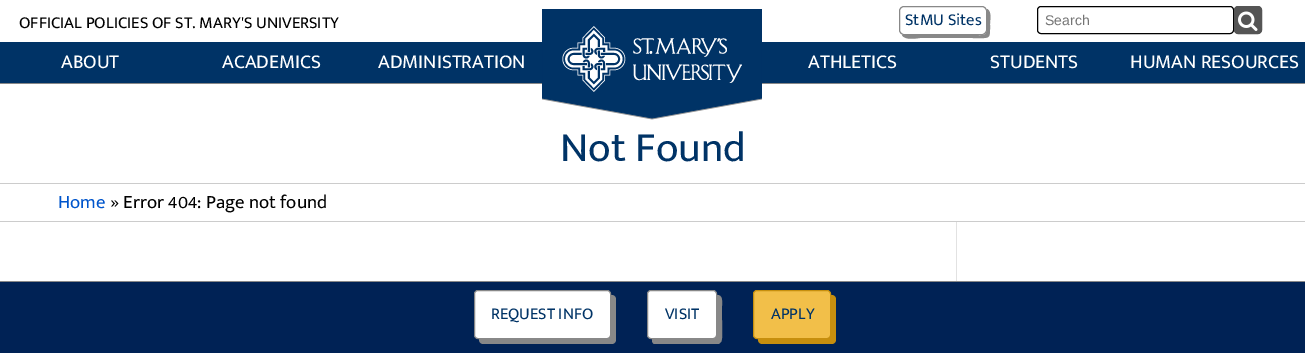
%!PS-Adobe-3.0
%%BoundingBox: 0 0 1305 353
%%LanguageLevel: 3
%%Pages: 1
%%EndComments
%%BeginProlog
/setink { dup -16 bitshift 255 div exch dup -8 bitshift 255 and 255 div exch 255 and 255 div setrgbcolor } def
/usefont { [ exch dup neg 0 0 3 -1 roll 0 0 ] selectfont } def
/rrect { 5 dict begin { /r /h /w /y /x } { exch def } forall
  x r add y moveto x w add y 2 copy h add r arct x w add y h add x 1 index r arct
  x y h add x y r arct x y 2 copy exch w add exch r arct closepath end } def
/drawimage { 5 dict begin { /h /w /y /x /name } { exch def } forall
  gsave x y translate w h scale
  w h 8 [w 0 0 h 0 0] name (r) file false 3 colorimage grestore end } def
%%EndProlog
%%BeginSetup
<< /PageSize [1305 353] >> setpagedevice
%%EndSetup
%%Page: 1 1
0 353 translate 1 -1 scale
4 setmiterlimit
16#FFFFFF setink
0 0 1305 353 rectfill
16#003366 setink
0 42 1305 41 rectfill
/MuktaMahee-Regular 16.75 usefont
16#000000 setink
19 28 moveto (OFFICIAL POLICIES OF ST. MARY'S UNIVERSITY) show
16#888888 setink
902 35 moveto 905 41 918 38 920 38 curveto 972 38 lineto 991 38 990 40 990 24 curveto 990 20 992 11 987 9 curveto 987 24 lineto 987 38 985 35 969 35 curveto closepath fill
16#FFFFFF setink
899.5 6.5 87 28 4.5 rrect gsave fill grestore
16#888888 setink
stroke
16#003366 setink
905 25 moveto (StMU Sites) show
16#000000 setink
1037.5 6.5 196 27 3.5 rrect stroke
/LiberationSans-Regular 14 usefont
16#757575 setink
1045 25 moveto (Search) show
16#555555 setink
1234.5 6.5 27 27 3.5 rrect gsave fill grestore
stroke
(img1.raw) 1238 11 20 20 drawimage
16#888888 setink
0 83 1305 1 rectfill
/MuktaMahee-Regular 19.75 usefont
16#FFFFFF setink
[
    [(ABOUT) 61 68]
    [(ACADEMICS) 222 68]
    [(ADMINISTRATION) 378 68]
] { aload pop moveto show } forall
(img2.raw) 542 9 220 111 drawimage
[
    [(ATHLETICS) 808 68]
    [(STUDENTS) 990 68]
    [(HUMAN RESOURCES) 1130 68]
] { aload pop moveto show } forall
/MuktaMahee-Regular 42 usefont
16#003366 setink
560 161 moveto (Not Found) show
16#CCCCCC setink
0 183 1305 1 rectfill
0 221 1305 1 rectfill
/MuktaMahee-Regular 18.9 usefont
16#0055CC setink
58 208 moveto (Home) show
16#000000 setink
110 208 moveto (» Error 404: Page not found) show
[
    [956 222 1 59 16#E2E2E2]
    [0 282 1305 71 16#002255]
    [0 281 1305 1 16#888888]
] { aload pop setink rectfill } forall
479 339 moveto 479 340 lineto 479 342 481 344 483 344 curveto 612 344 lineto 614 344 616 342 616 340 curveto 616 299 lineto 616 297 614 295 612 295 curveto 611 295 lineto 611 335 lineto 611 337 609 339 607 339 curveto closepath fill
16#FFFFFF setink
474.5 290.5 136 48 3.5 rrect gsave fill grestore
16#888888 setink
stroke
/MuktaMahee-Regular 16.5 usefont
16#003366 setink
491 319 moveto (REQUEST INFO) show
16#888888 setink
652 339 moveto 652 341 652 343 654 344 curveto 719 344 lineto 721 342 lineto 723 340 722 323 722 320 curveto 722 306 lineto 722 301 723 295 717 295 curveto 717 335 lineto 717 337 715 339 713 339 curveto closepath fill
16#FFFFFF setink
647.5 290.5 69 48 3.5 rrect gsave fill grestore
16#888888 setink
stroke
16#003366 setink
665 319 moveto (VISIT) show
16#C78F0E setink
758 339 moveto 758 340 lineto 758 342 760 344 762 344 curveto 832 344 lineto 834 344 836 342 836 340 curveto 836 299 lineto 836 297 834 295 832 295 curveto 831 295 lineto 831 335 lineto 831 337 829 339 827 339 curveto closepath fill
16#F2BF49 setink
753.5 290.5 77 48 3.5 rrect gsave fill grestore
16#C78F0E setink
stroke
16#003366 setink
771 319 moveto (APPLY) show
showpage
%%EOF
